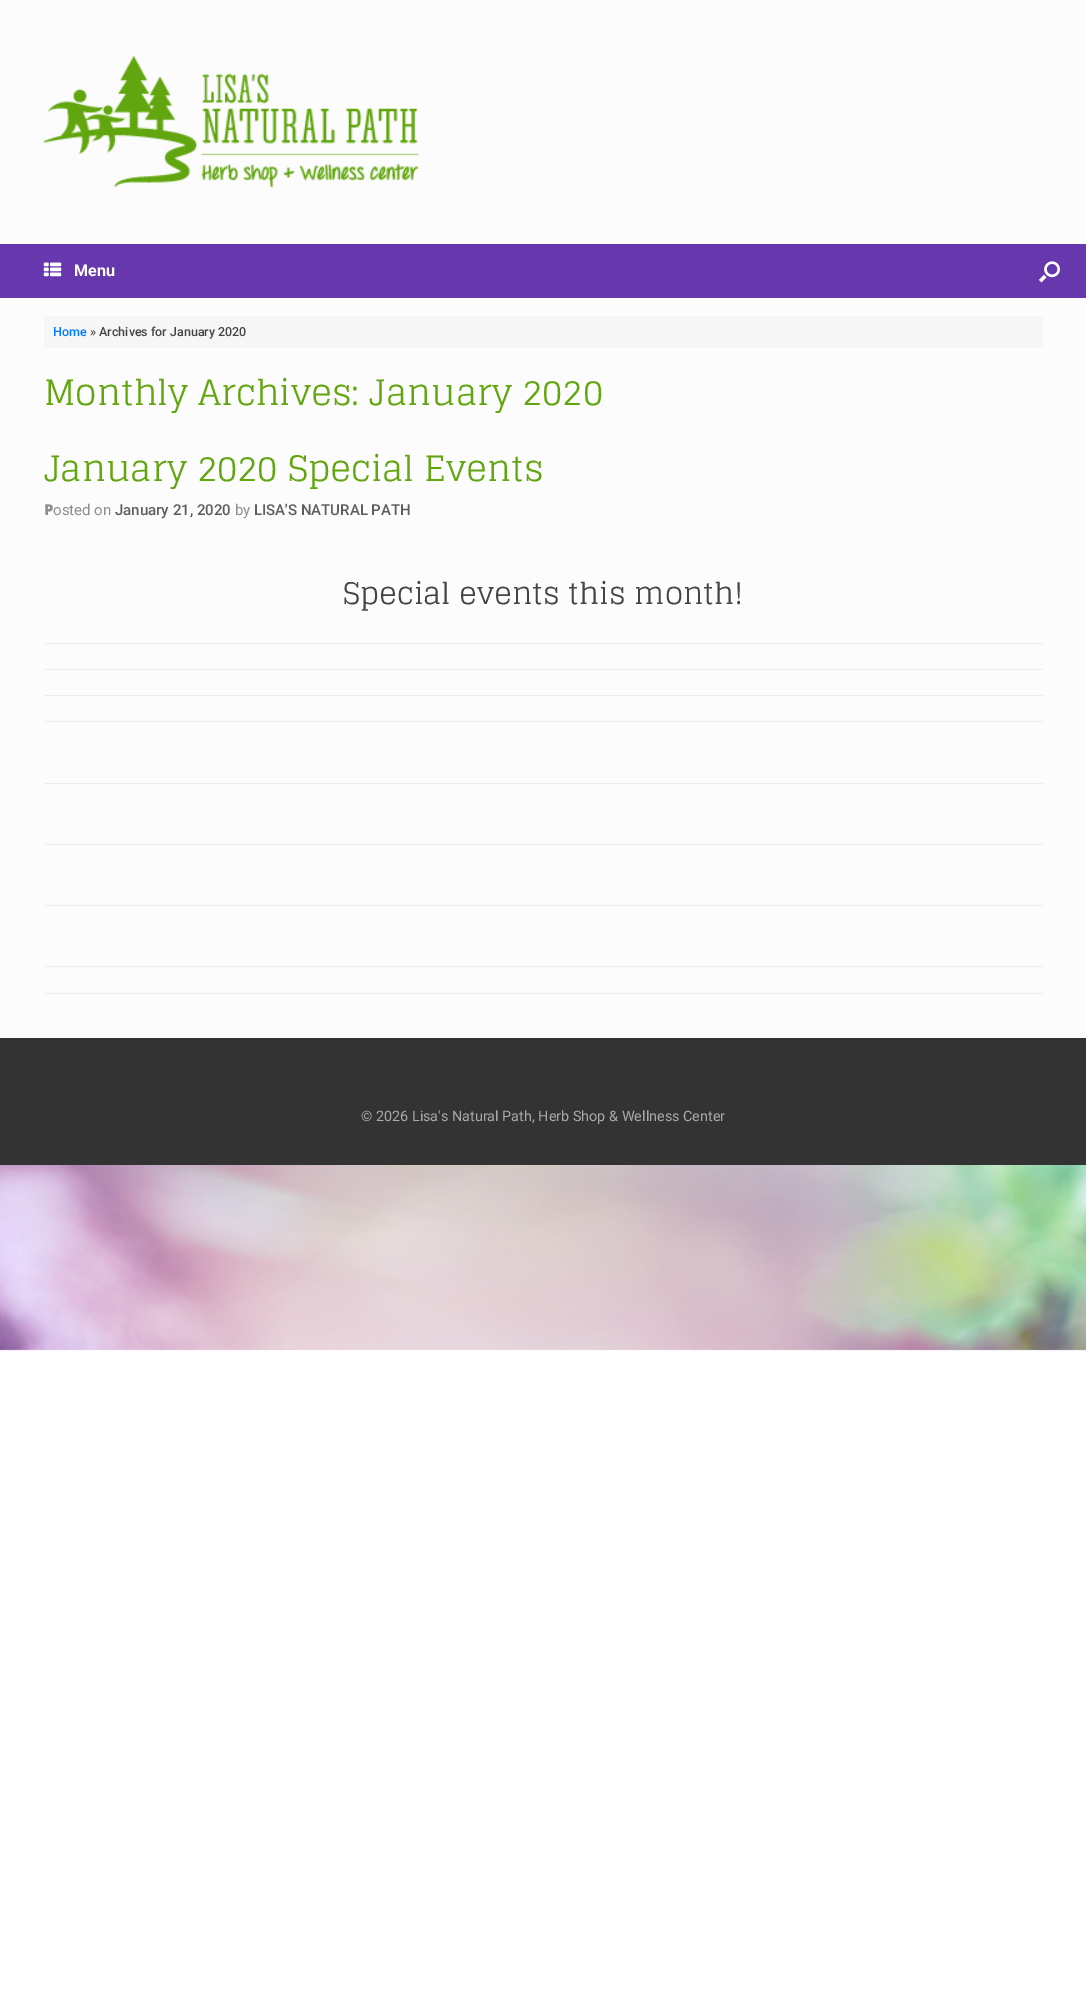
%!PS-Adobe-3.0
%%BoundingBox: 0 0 1086 1994
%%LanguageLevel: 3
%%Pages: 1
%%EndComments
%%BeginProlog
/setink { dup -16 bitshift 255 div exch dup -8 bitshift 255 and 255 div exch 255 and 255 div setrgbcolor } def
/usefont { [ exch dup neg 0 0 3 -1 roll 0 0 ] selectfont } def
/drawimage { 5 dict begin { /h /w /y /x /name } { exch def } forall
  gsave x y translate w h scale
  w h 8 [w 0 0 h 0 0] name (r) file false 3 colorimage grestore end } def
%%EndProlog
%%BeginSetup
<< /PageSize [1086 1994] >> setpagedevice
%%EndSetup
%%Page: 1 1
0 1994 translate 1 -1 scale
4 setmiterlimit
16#FFFFFF setink
0 0 1086 1994 rectfill
(img1.raw) 0 1165 1086 186 drawimage
16#FCFCFC setink
0 0 1086 244 rectfill
(img2.raw) 43 56 376 132 drawimage
16#6737AD setink
0 244 1086 54 rectfill
(img3.raw) 43 262 19 15 drawimage
/Roboto-Bold 16 usefont
16#FFFFFF setink
74 276 moveto (Menu) show
(img4.raw) 1038 261 22 22 drawimage
16#FCFCFC setink
0 298 1086 740 rectfill
16#F6F6F6 setink
44 316 999 32 rectfill
/Roboto-Medium 12.5 usefont
16#007BFF setink
53 336 moveto (Home) show
16#444444 setink
90 336 moveto (» Archives for January 2020) show
/Glegoo-Regular 35 usefont
16#61A60F setink
44 405 moveto (Monthly Archives: January 2020) show
44 481 moveto (January 2020 Special Events) show
/NotoSans-Black 15 usefont
16#8F8F8F setink
44 515 moveto (P) show
/Roboto-Regular 15 usefont
53 515 moveto (osted on) show
/Roboto-Medium 15 usefont
16#5E5E5E setink
115 515 moveto (January 21, 2020) show
/Roboto-Regular 15 usefont
16#8F8F8F setink
235 515 moveto (by) show
/Roboto-Medium 15 usefont
16#5E5E5E setink
254 515 moveto (LISA'S NATURAL PATH) show
16#EDEDED setink
44 669 999 1 rectfill
44 643 999 1 rectfill
/Glegoo-Regular 29.75 usefont
16#444444 setink
343 604 moveto (Special events this month!) show
[
    [44 721 999 1 16#EDEDED]
    [44 695 999 1 16#EDEDED]
    [44 993 999 1 16#EDEDED]
    [44 783 999 1 16#EDEDED]
    [44 844 999 1 16#EDEDED]
    [44 905 999 1 16#EDEDED]
    [44 966 999 1 16#EDEDED]
    [0 1038 1086 127 16#333333]
] { aload pop setink rectfill } forall
/Roboto-Regular 14.4 usefont
16#AAAAAA setink
361 1121 moveto (© 2026 Lisa's Natural Path, Herb Shop & Wellness Center) show
showpage
%%EOF
